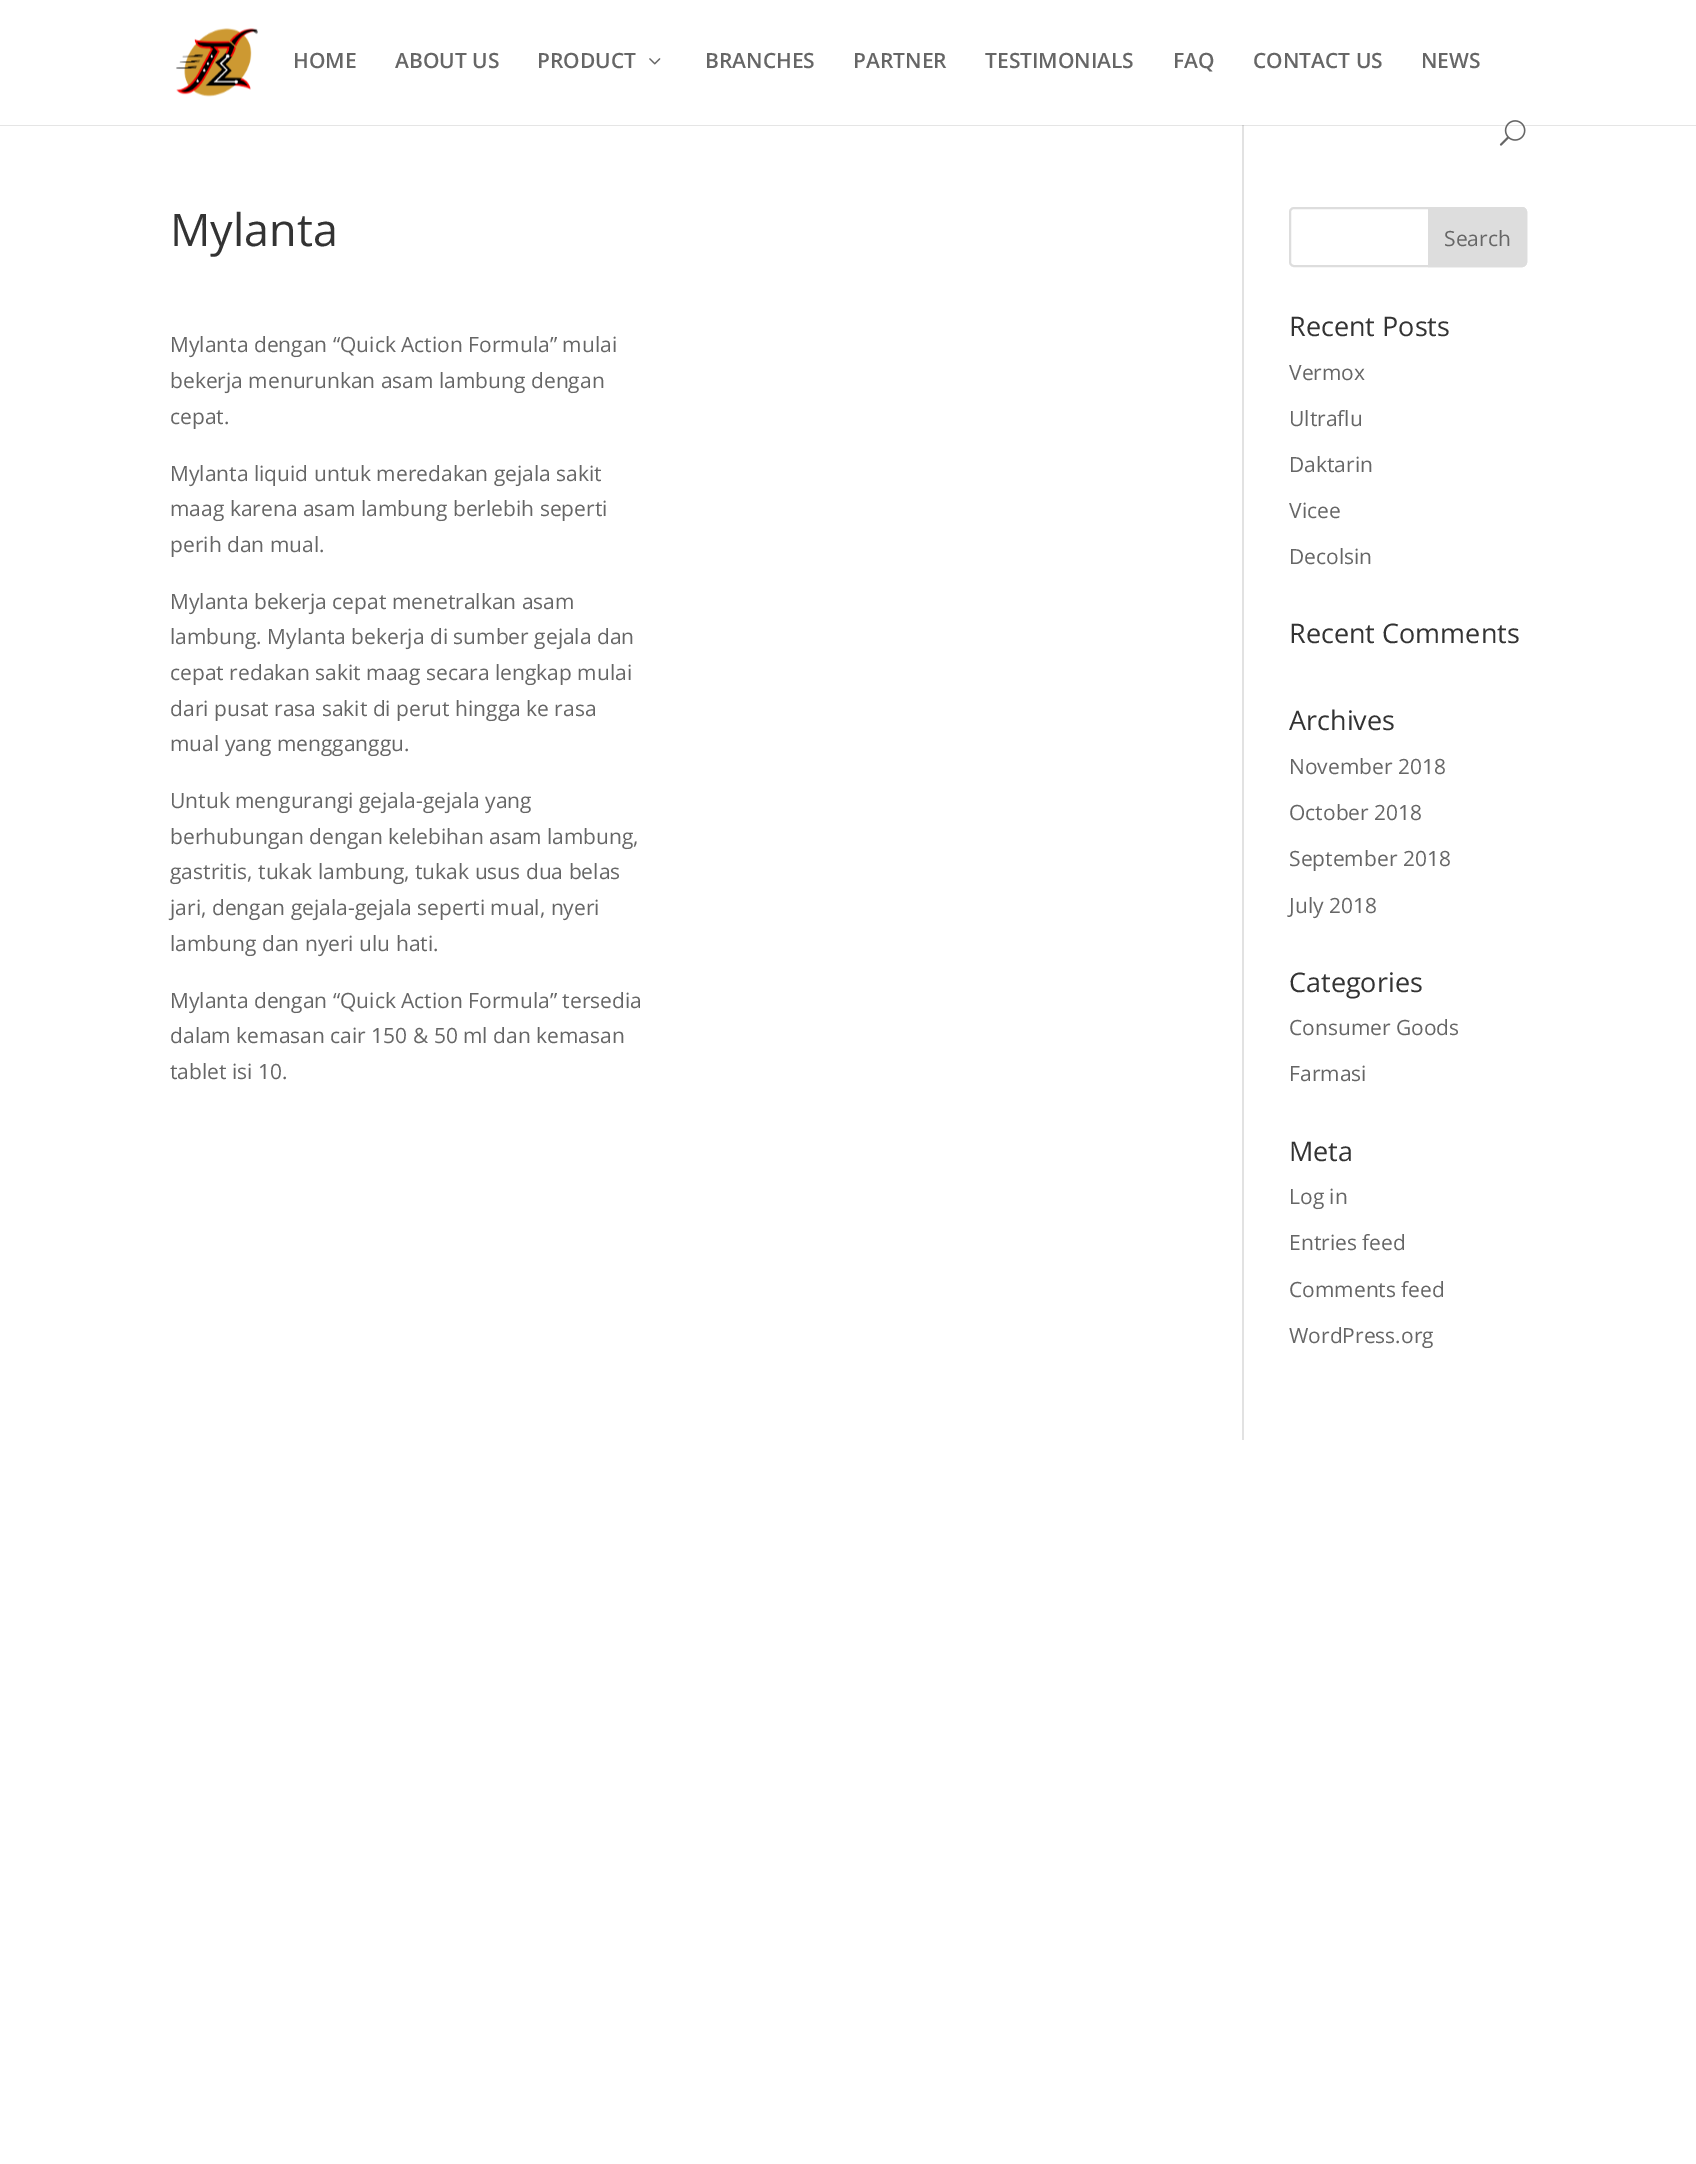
%!PS-Adobe-3.0
%%BoundingBox: 0 0 1696 2164
%%LanguageLevel: 3
%%Pages: 1
%%EndComments
%%BeginProlog
/setink { dup -16 bitshift 255 div exch dup -8 bitshift 255 and 255 div exch 255 and 255 div setrgbcolor } def
/usefont { [ exch dup neg 0 0 3 -1 roll 0 0 ] selectfont } def
/setalpha { dup .setfillconstantalpha .setstrokeconstantalpha } def
/rrect { 5 dict begin { /r /h /w /y /x } { exch def } forall
  x r add y moveto x w add y 2 copy h add r arct x w add y h add x 1 index r arct
  x y h add x y r arct x y 2 copy exch w add exch r arct closepath end } def
/drawimage { 5 dict begin { /h /w /y /x /name } { exch def } forall
  gsave x y translate w h scale
  w h 8 [w 0 0 h 0 0] name (r) file false 3 colorimage grestore end } def
%%EndProlog
%%BeginSetup
<< /PageSize [1696 2164] /PageUsesTransparency true >> setpagedevice
%%EndSetup
%%Page: 1 1
0 .pushpdf14devicefilter
0 2164 translate 1 -1 scale
4 setmiterlimit
16#FFFFFF setink
0 0 1696 2164 rectfill
16#E2E2E2 setink
1242 120 2 1320 rectfill
0.1 setalpha
16#000000 setink
0 124 moveto 0 126 lineto 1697 126 lineto 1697 2 lineto 1696 2 lineto 1696 124 lineto closepath fill
1 setalpha
16#FFFFFF setink
0 120 1696 5 rectfill
(img1.raw) 176 28 82 69 drawimage
/OpenSans-SemiBold 21 usefont
16#666666 setink
[
    [(HOME) 293 68]
    [(ABOUT US) 395 68]
    [(PRODUCT) 537 68]
] { aload pop moveto show } forall
(img2.raw) 649 58 12 7 drawimage
[
    [(BRANCHES) 705 68]
    [(PARTNER) 853 68]
    [(TESTIMONIALS) 985 68]
    [(FAQ) 1173 68]
    [(CONTACT US) 1253 68]
    [(NEWS) 1421 68]
] { aload pop moveto show } forall
(img3.raw) 1499 120 27 26 drawimage
/OpenSans-Regular 45 usefont
16#333333 setink
170 246 moveto (Mylanta) show
/OpenSans-Regular 21 usefont
16#666666 setink
[
    [(Mylanta dengan “Quick Action Formula” mulai) 170 352]
    [(bekerja menurunkan asam lambung dengan) 170 388]
    [(cepat.) 170 424]
    [(Mylanta liquid untuk meredakan gejala sakit) 170 481]
    [(maag karena asam lambung berlebih seperti) 170 516]
    [(perih dan mual.) 170 552]
    [(Mylanta bekerja cepat menetralkan asam) 170 609]
    [(lambung. Mylanta bekerja di sumber gejala dan) 170 644]
    [(cepat redakan sakit maag secara lengkap mulai) 170 680]
    [(dari pusat rasa sakit di perut hingga ke rasa) 170 716]
    [(mual yang mengganggu.) 170 751]
    [(Untuk mengurangi gejala-gejala yang) 170 808]
    [(berhubungan dengan kelebihan asam lambung,) 170 844]
    [(gastritis, tukak lambung, tukak usus dua belas) 170 879]
    [(jari, dengan gejala-gejala seperti mual, nyeri) 170 915]
    [(lambung dan nyeri ulu hati.) 170 951]
    [(Mylanta dengan “Quick Action Formula” tersedia) 170 1008]
    [(dalam kemasan cair 150 & 50 ml dan kemasan) 170 1043]
    [(tablet isi 10.) 170 1079]
] { aload pop moveto show } forall
16#DDDDDD setink
2 setlinewidth
1290 208 236 58 4 rrect stroke
1429 208 moveto 1522 208 lineto 1524 208 1526 210 1526 212 curveto 1526 262 lineto 1526 264 1524 266 1522 266 curveto 1429 266 lineto closepath gsave fill grestore
stroke
16#666666 setink
1444 246 moveto (Search) show
/OpenSans-Regular 27 usefont
16#333333 setink
1289 336 moveto (Recent Posts) show
/OpenSans-Regular 21 usefont
16#666666 setink
[
    [(Vermox) 1289 380]
    [(Ultraflu) 1289 426]
    [(Daktarin) 1289 472]
    [(Vicee) 1289 518]
    [(Decolsin) 1289 564]
] { aload pop moveto show } forall
/OpenSans-Regular 27 usefont
16#333333 setink
1289 643 moveto (Recent Comments) show
1289 730 moveto (Archives) show
/OpenSans-Regular 21 usefont
16#666666 setink
[
    [(November 2018) 1289 774]
    [(October 2018) 1289 820]
    [(September 2018) 1289 866]
    [(July 2018) 1289 913]
] { aload pop moveto show } forall
/OpenSans-Regular 27 usefont
16#333333 setink
1289 992 moveto (Categories) show
/OpenSans-Regular 21 usefont
16#666666 setink
1289 1035 moveto (Consumer Goods) show
1289 1081 moveto (Farmasi) show
/OpenSans-Regular 27 usefont
16#333333 setink
1289 1161 moveto (Meta) show
/OpenSans-Regular 21 usefont
16#666666 setink
[
    [(Log in) 1289 1204]
    [(Entries feed) 1289 1250]
    [(Comments feed) 1289 1297]
    [(WordPress.org) 1289 1343]
] { aload pop moveto show } forall
.poppdf14devicefilter showpage
%%EOF
